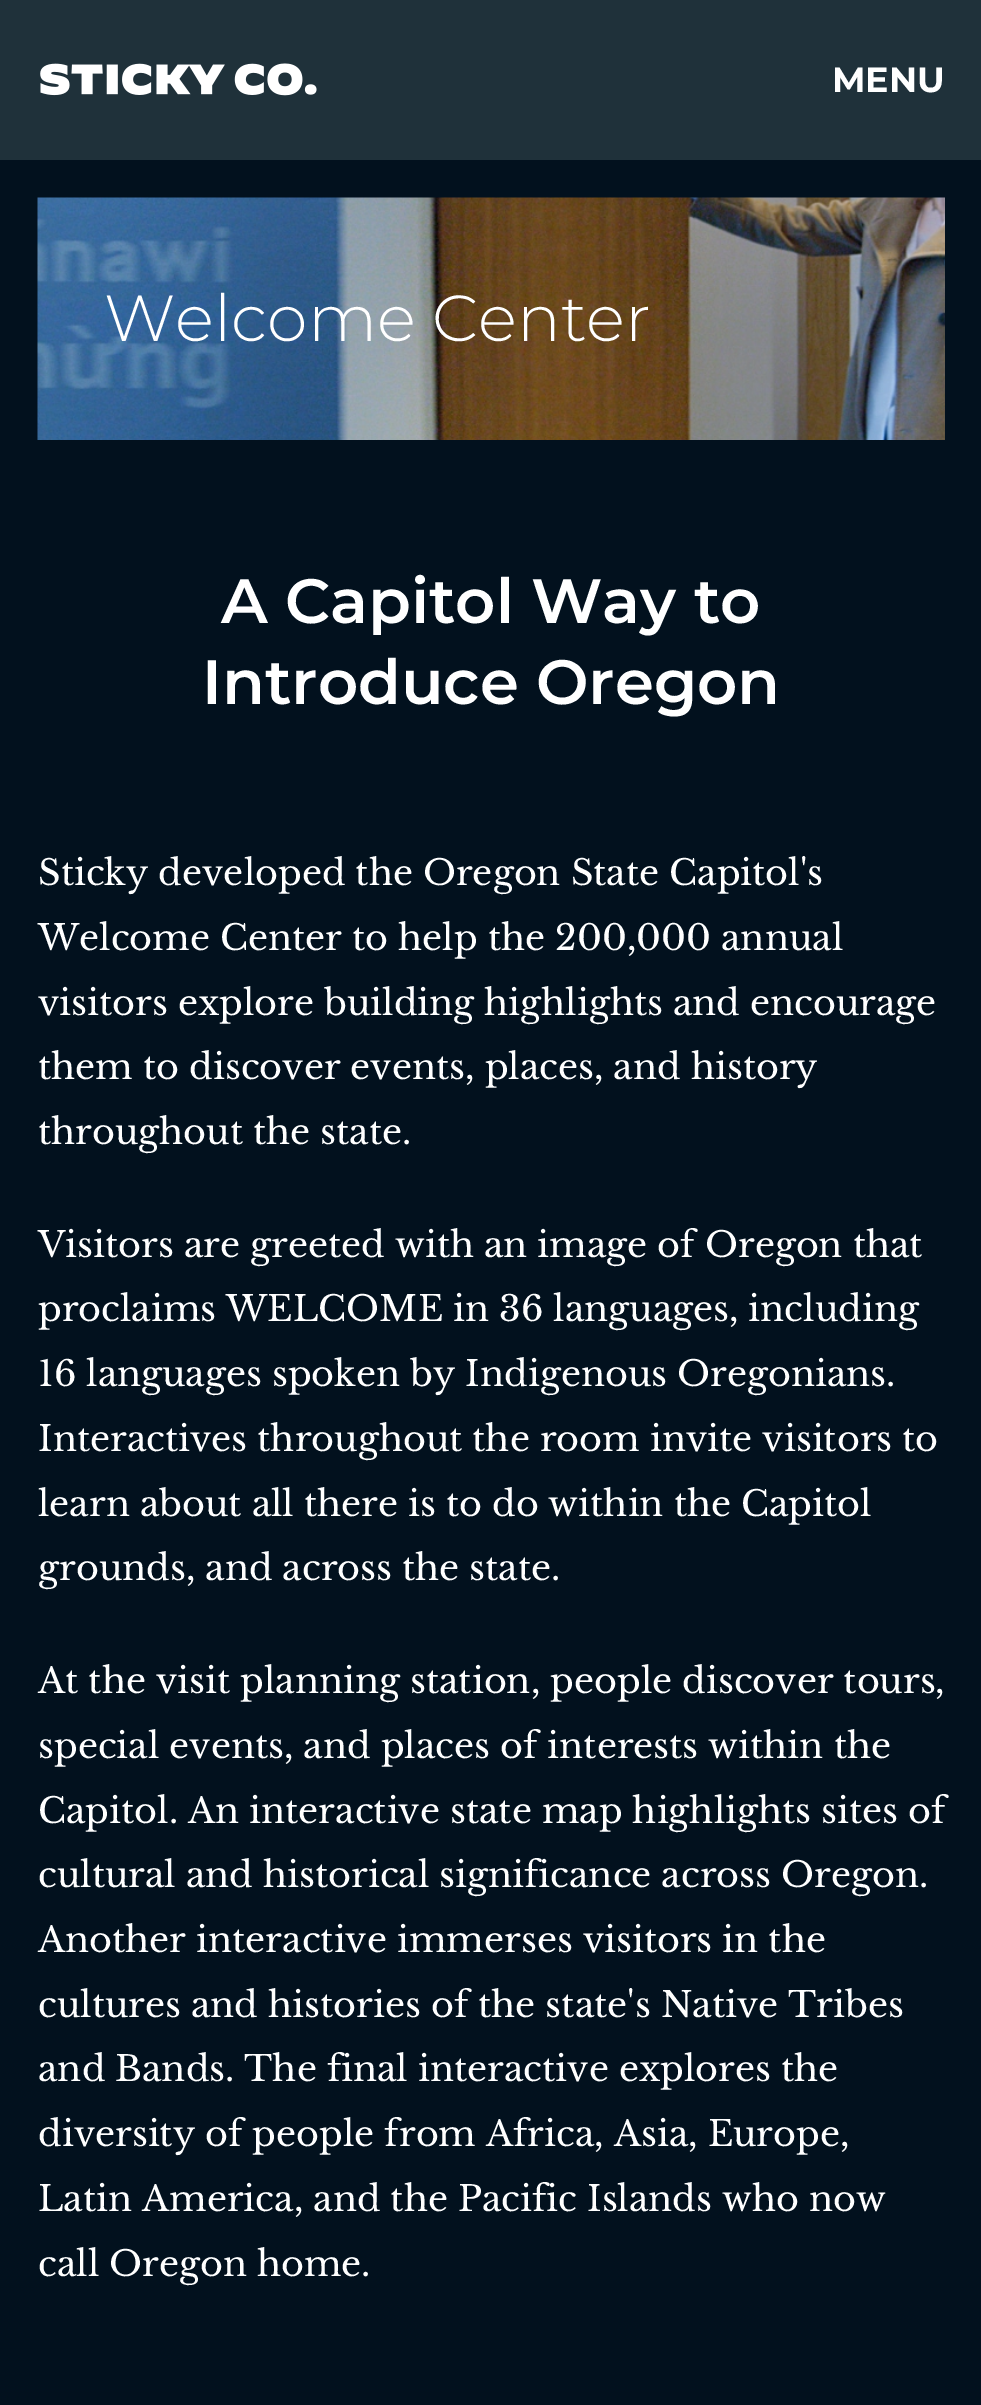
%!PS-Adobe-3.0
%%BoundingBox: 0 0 981 2405
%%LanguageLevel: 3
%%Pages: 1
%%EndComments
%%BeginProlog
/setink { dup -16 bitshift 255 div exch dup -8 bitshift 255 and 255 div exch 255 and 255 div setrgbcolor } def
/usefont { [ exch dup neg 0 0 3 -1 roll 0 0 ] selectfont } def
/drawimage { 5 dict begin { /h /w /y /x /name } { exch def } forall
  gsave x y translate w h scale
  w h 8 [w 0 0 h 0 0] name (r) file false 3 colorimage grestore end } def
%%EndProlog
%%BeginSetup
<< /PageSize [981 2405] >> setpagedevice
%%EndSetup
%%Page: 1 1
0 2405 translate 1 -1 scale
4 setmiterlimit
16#02111E setink
0 0 981 2405 rectfill
16#1F313A setink
0 0 981 160 rectfill
(img1.raw) 40 63 277 33 drawimage
/Montserrat-Bold 35 usefont
16#FFFFFF setink
832 92 moveto (MENU) show
(img2.raw) 37 197 908 243 drawimage
/Montserrat-Light 65 usefont
104 341 moveto (Welcome Center) show
/Montserrat-SemiBold 62.5 usefont
221 623 moveto (A Capitol Way to) show
202 704 moveto (Introduce Oregon) show
/LibreBaskerville-Regular 35 usefont
[
    [(Sticky developed the Oregon State Capitol's) 38 885]
    [(Welcome Center to help the 200,000 annual) 38 950]
    [(visitors explore building highlights and encourage) 38 1015]
    [(them to discover events, places, and history) 38 1079]
    [(throughout the state.) 38 1144]
    [(Visitors are greeted with an image of Oregon that) 38 1257]
    [(proclaims WELCOME in 36 languages, including) 38 1321]
    [(16 languages spoken by Indigenous Oregonians.) 38 1386]
    [(Interactives throughout the room invite visitors to) 38 1451]
    [(learn about all there is to do within the Capitol) 38 1516]
    [(grounds, and across the state.) 38 1580]
    [(At the visit planning station, people discover tours,) 38 1693]
    [(special events, and places of interests within the) 38 1758]
    [(Capitol. An interactive state map highlights sites of) 38 1823]
    [(cultural and historical significance across Oregon.) 38 1887]
    [(Another interactive immerses visitors in the) 38 1952]
    [(cultures and histories of the state's Native Tribes) 38 2017]
    [(and Bands. The final interactive explores the) 38 2081]
    [(diversity of people from Africa, Asia, Europe,) 38 2146]
    [(Latin America, and the Pacific Islands who now) 38 2211]
    [(call Oregon home.) 38 2276]
] { aload pop moveto show } forall
showpage
%%EOF
